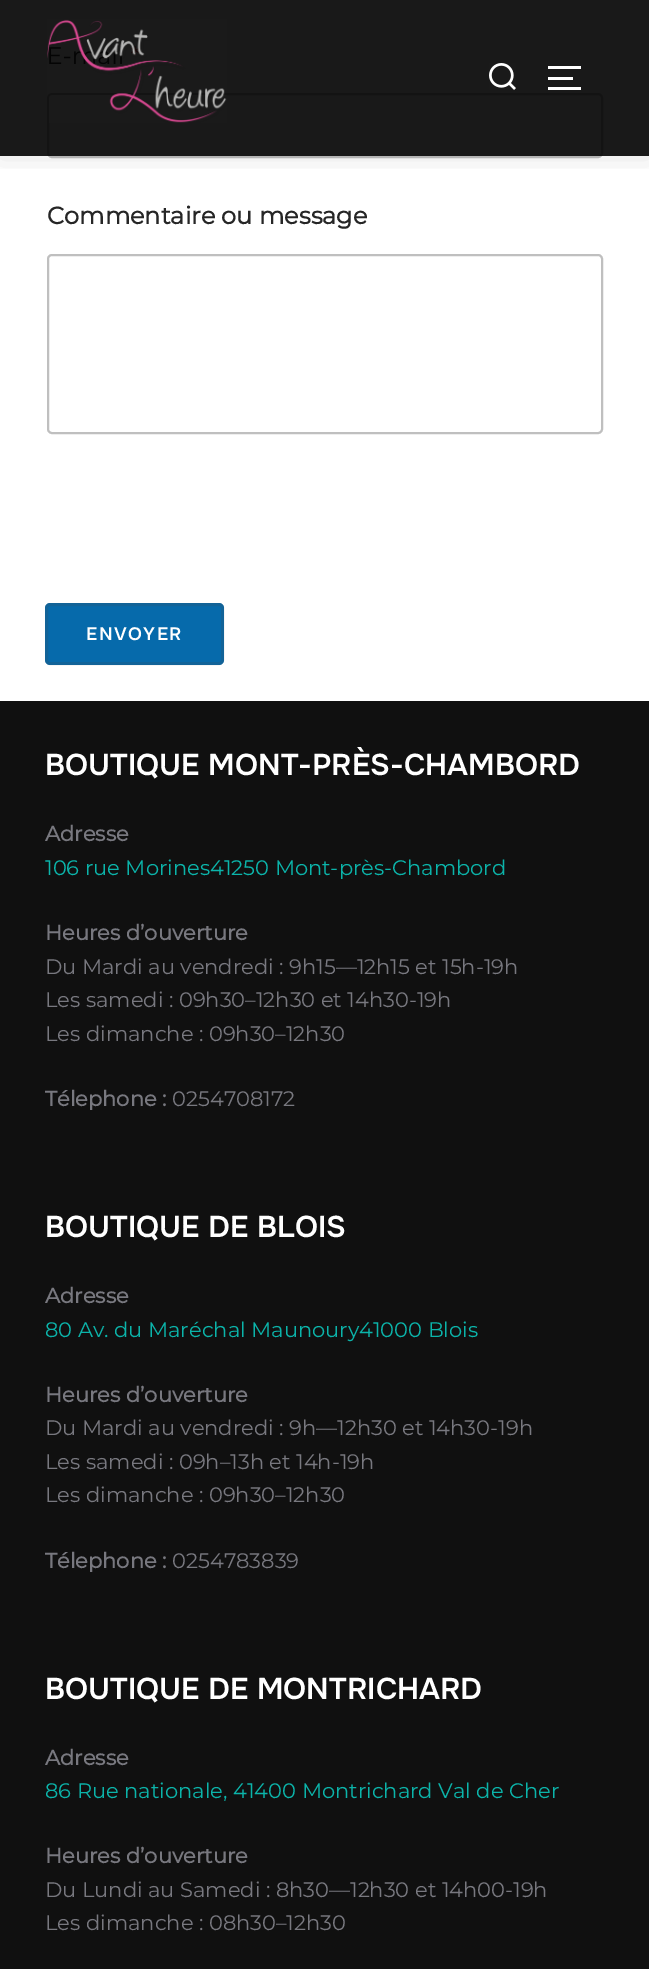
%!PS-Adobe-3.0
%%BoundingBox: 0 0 649 1969
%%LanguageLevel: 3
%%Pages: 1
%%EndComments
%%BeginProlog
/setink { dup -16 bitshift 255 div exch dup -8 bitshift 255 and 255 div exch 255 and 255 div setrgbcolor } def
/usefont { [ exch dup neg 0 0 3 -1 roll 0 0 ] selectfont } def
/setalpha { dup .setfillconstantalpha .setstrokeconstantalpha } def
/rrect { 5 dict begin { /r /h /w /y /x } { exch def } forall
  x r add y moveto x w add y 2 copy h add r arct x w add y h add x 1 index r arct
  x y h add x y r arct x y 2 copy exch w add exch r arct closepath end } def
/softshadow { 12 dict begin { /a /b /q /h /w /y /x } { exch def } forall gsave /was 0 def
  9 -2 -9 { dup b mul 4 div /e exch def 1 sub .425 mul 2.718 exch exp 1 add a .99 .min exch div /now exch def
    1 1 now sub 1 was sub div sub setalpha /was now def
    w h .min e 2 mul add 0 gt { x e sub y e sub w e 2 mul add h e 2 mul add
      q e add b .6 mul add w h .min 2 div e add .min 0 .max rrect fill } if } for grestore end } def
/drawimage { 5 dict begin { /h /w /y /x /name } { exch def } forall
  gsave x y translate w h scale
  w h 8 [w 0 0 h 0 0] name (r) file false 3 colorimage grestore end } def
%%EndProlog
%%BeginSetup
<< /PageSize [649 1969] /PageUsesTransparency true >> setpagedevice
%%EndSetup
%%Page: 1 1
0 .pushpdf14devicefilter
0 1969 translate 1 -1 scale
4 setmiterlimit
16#FFFFFF setink
0 0 649 1969 rectfill
16#BFBFBF setink
2 setlinewidth
48 94 554 63 4 rrect stroke
gsave
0 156 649 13 rectclip
16#000000 setink
-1 -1 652 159 0 13.5 0.1 softshadow
grestore
0.9 setalpha
16#000000 setink
0 0 649 156 rectfill
1 setalpha
(img1.raw) 47 19 180 104 drawimage
(img2.raw) 489 63 27 27 drawimage
[
    [548 66 33 3 16#FFFFFF]
    [548 77 25 3 16#FFFFFF]
    [548 87 33 3 16#FFFFFF]
] { aload pop setink rectfill } forall
/Montserrat-Bold 24 usefont
16#262626 setink
47 224 moveto (Commentaire ou message) show
16#BFBFBF setink
48 255 554 178 4 rrect stroke
16#066AAB setink
45 603 179 62 5 rrect fill
0.19 setalpha
16#444444 setink
3 setlinewidth
46.5 604.5 176 59 3.5 rrect stroke
/Onest-SemiBold 18 usefont
1 setalpha
16#FFFFFF setink
86 640 moveto 1.5 0 (ENVOYER) ashow
16#101010 setink
0 701 649 1268 rectfill
/Onest-SemiBold 30 usefont
16#FFFFFF setink
45 775 moveto (BOUTIQUE MONT-PRÈS-CHAMBORD) show
/Montserrat-Bold 21 usefont
16#78787F setink
45 841 moveto (Adresse) show
/Montserrat-Thin 21 usefont
16#0BB4AA setink
45 875 moveto (106 rue Morines41250 Mont-près-Chambord) show
/Montserrat-Bold 21 usefont
16#78787F setink
45 940 moveto (Heures d’ouverture) show
/Montserrat-Thin 21 usefont
[
    [(Du Mardi au vendredi : 9h15—12h15 et 15h-19h) 45 974]
    [(Les samedi : 09h30–12h30 et 14h30-19h) 45 1007]
    [(Les dimanche : 09h30–12h30) 45 1041]
] { aload pop moveto show } forall
/Montserrat-Bold 21 usefont
45 1106 moveto (Télephone :) show
/Montserrat-Thin 21 usefont
172 1106 moveto (0254708172) show
/Onest-SemiBold 30 usefont
16#FFFFFF setink
45 1237 moveto (BOUTIQUE DE BLOIS) show
/Montserrat-Bold 21 usefont
16#78787F setink
45 1303 moveto (Adresse) show
/Montserrat-Thin 21 usefont
16#0BB4AA setink
45 1337 moveto (80 Av. du Maréchal Maunoury41000 Blois) show
/Montserrat-Bold 21 usefont
16#78787F setink
45 1402 moveto (Heures d’ouverture) show
/Montserrat-Thin 21 usefont
[
    [(Du Mardi au vendredi : 9h—12h30 et 14h30-19h) 45 1435]
    [(Les samedi : 09h–13h et 14h-19h) 45 1469]
    [(Les dimanche : 09h30–12h30) 45 1502]
] { aload pop moveto show } forall
/Montserrat-Bold 21 usefont
45 1568 moveto (Télephone :) show
/Montserrat-Thin 21 usefont
172 1568 moveto (0254783839) show
/Onest-SemiBold 30 usefont
16#FFFFFF setink
45 1699 moveto (BOUTIQUE DE MONTRICHARD) show
/Montserrat-Bold 21 usefont
16#78787F setink
45 1765 moveto (Adresse) show
/Montserrat-Thin 21 usefont
16#0BB4AA setink
45 1798 moveto (86 Rue nationale, 41400 Montrichard Val de Cher) show
/Montserrat-Bold 21 usefont
16#78787F setink
45 1863 moveto (Heures d’ouverture) show
/Montserrat-Thin 21 usefont
45 1897 moveto (Du Lundi au Samedi : 8h30—12h30 et 14h00-19h) show
45 1930 moveto (Les dimanche : 08h30–12h30) show
.poppdf14devicefilter showpage
%%EOF
